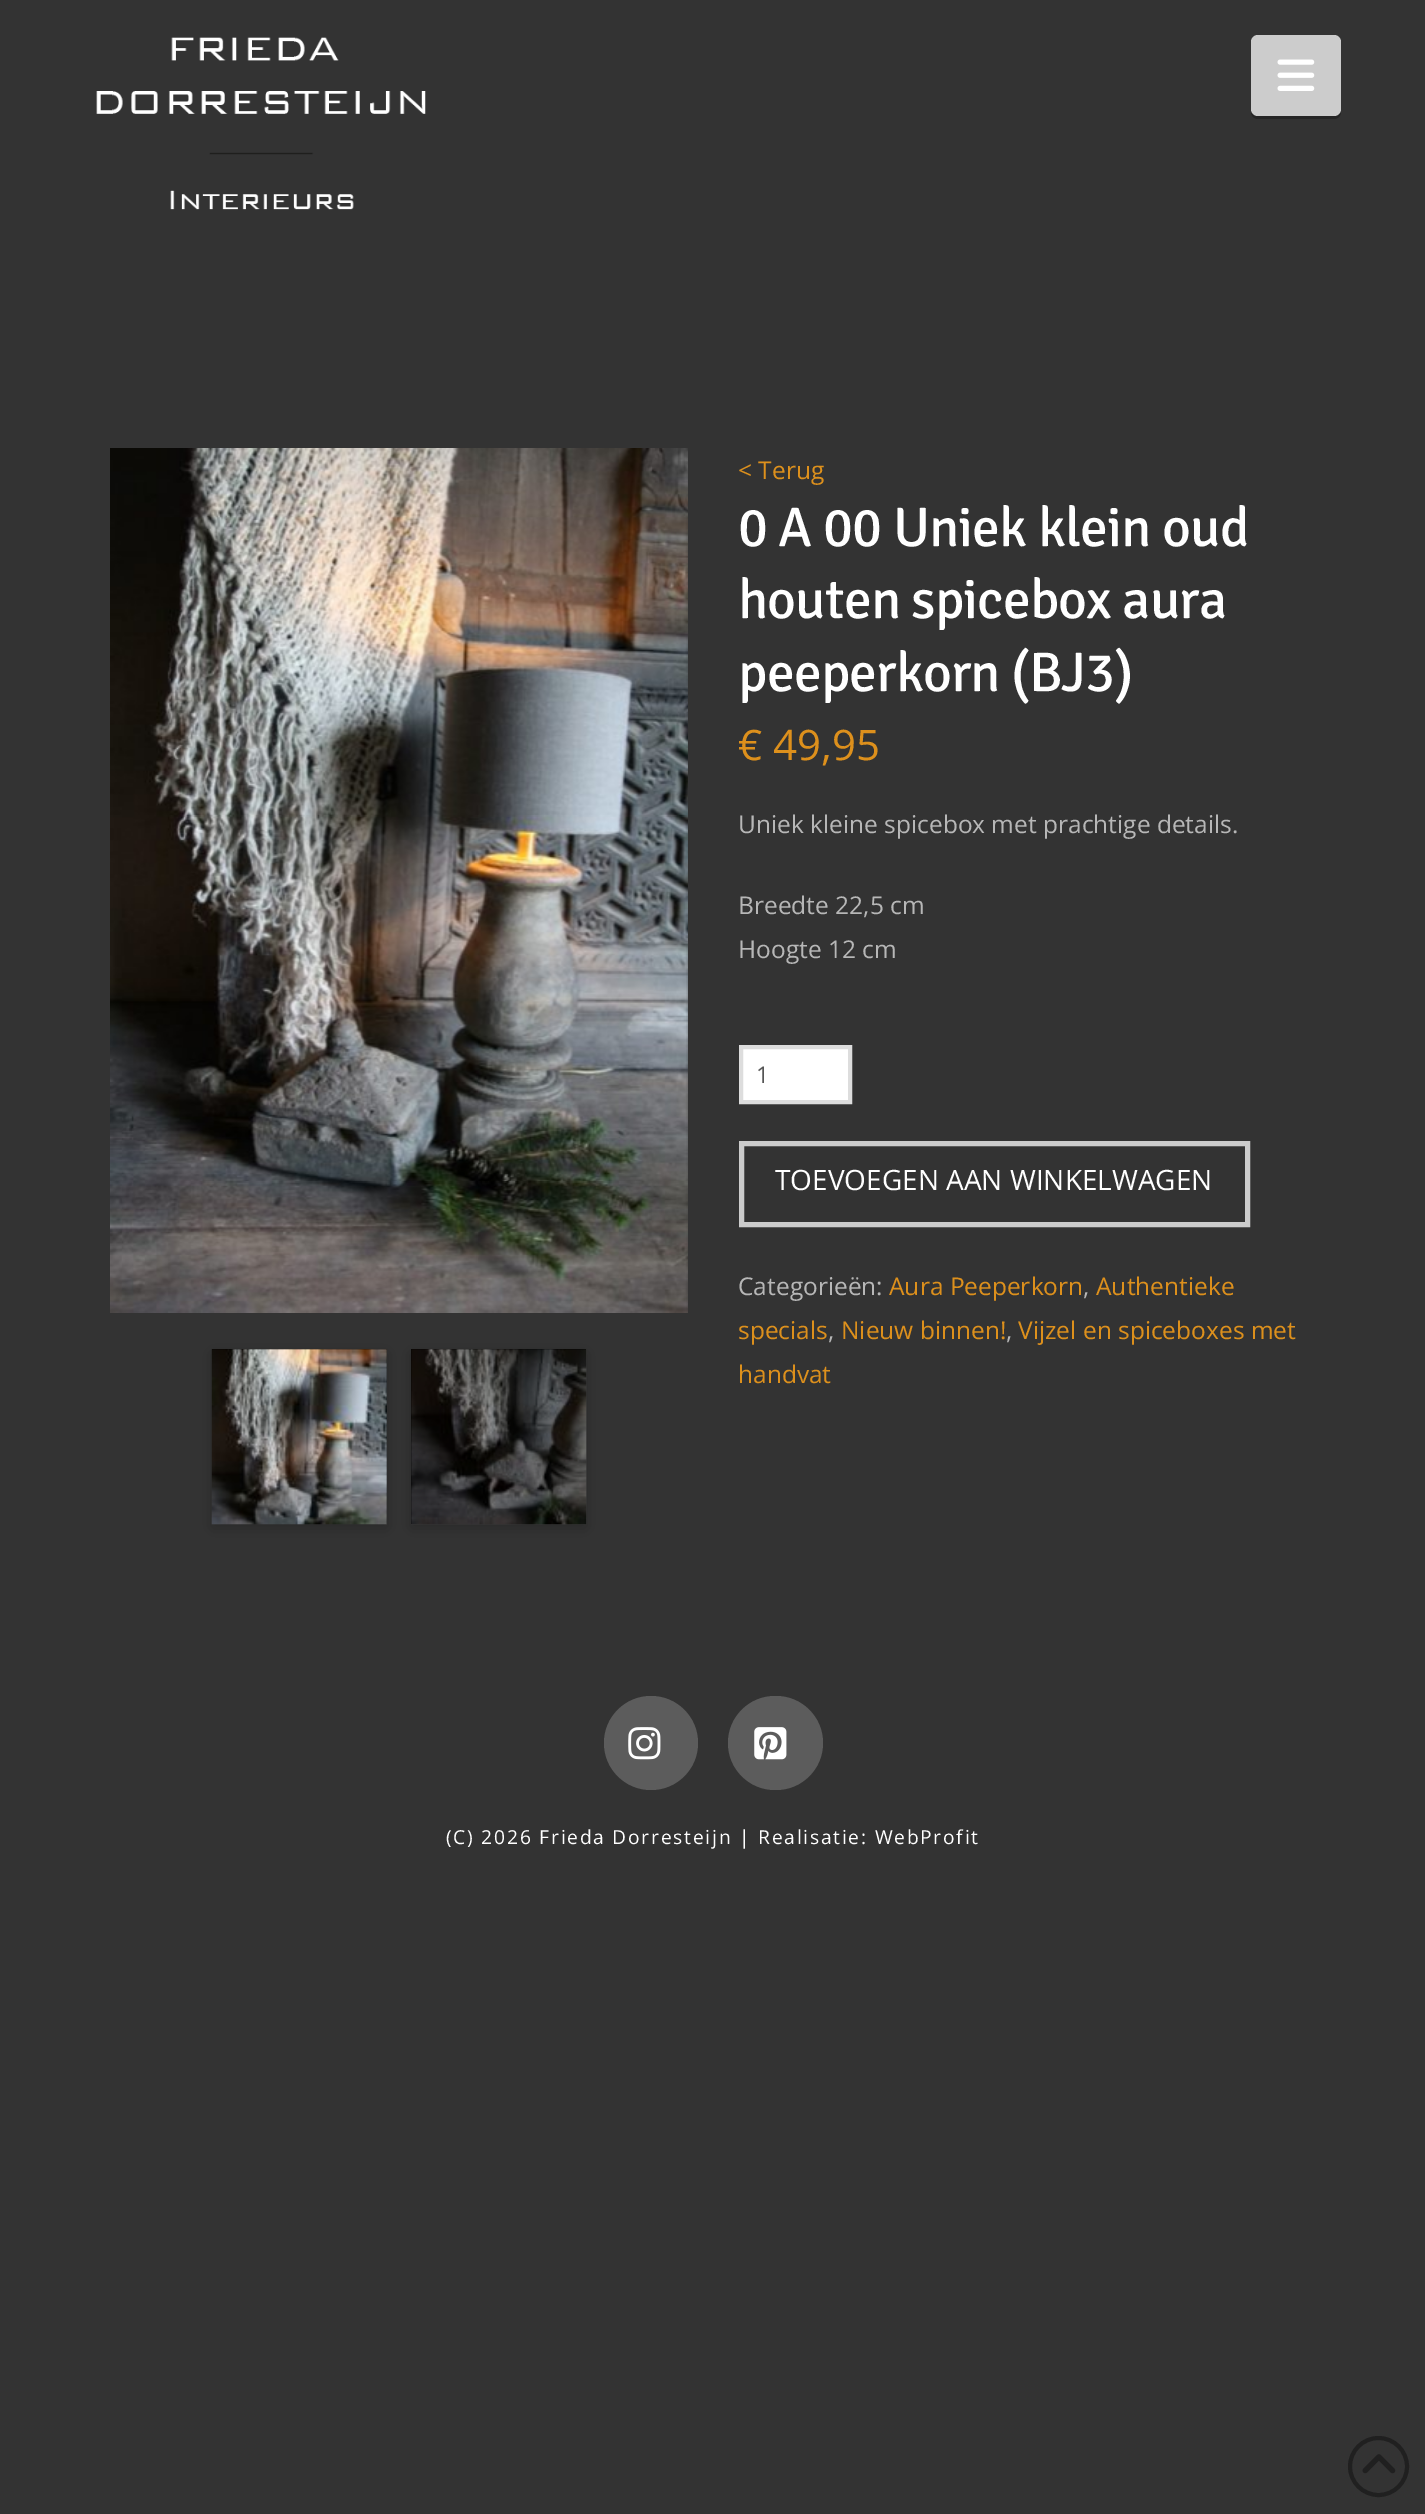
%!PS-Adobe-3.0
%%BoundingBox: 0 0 1425 2514
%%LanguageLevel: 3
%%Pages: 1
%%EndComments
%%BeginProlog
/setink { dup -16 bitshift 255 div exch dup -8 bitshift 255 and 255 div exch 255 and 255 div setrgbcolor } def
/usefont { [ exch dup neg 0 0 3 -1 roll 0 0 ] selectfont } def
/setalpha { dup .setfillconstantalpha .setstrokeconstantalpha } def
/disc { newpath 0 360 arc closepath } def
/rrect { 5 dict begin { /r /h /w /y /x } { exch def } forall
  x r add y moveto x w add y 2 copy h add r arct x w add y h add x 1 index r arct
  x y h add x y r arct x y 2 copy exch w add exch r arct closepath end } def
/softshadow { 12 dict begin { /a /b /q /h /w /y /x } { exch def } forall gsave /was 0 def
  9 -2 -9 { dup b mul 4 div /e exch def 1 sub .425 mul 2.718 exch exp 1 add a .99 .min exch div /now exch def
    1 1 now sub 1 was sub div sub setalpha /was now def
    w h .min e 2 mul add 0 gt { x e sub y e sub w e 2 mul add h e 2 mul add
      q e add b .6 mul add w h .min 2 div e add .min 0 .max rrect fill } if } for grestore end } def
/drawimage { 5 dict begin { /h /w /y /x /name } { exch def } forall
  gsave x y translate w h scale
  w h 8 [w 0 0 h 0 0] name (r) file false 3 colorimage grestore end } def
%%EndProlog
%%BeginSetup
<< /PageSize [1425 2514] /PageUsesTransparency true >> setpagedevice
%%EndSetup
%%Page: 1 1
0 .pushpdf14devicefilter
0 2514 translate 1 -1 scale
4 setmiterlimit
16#333333 setink
0 0 1425 2514 rectfill
(img1.raw) 96 37 330 173 drawimage
16#262626 setink
1251 44 moveto 1251 112 lineto 1251 116 1254 119 1258 119 curveto 1334 119 lineto 1338 119 1341 116 1341 112 curveto 1341 46 lineto 1340 43 lineto 1340 108 lineto 1340 112 1337 116 1334 116 curveto 1258 116 lineto 1254 116 1251 112 1251 108 curveto closepath fill
16#CCCCCC setink
1251 35 90 81 7 rrect fill
(img2.raw) 1277 59 38 32 drawimage
(img3.raw) 110 448 578 865 drawimage
16#000000 setink
212 1353 175 175 0 7.5 0.22 softshadow
212 1349 175 175 rectfill
(img4.raw) 211 1349 176 176 drawimage
411 1353 175 175 0 7.5 0.22 softshadow
411 1349 175 175 rectfill
(img5.raw) 411 1349 176 176 drawimage
/OpenSans-Regular 24.5 usefont
16#DD901C setink
738 479 moveto (< Terug) show
/Signika-Light 55.75 usefont
16#FFFFFF setink
738 546 moveto -0.95 0 (0 A 00 Uniek klein oud) ashow
738 618 moveto -0.95 0 (houten spicebox aura) ashow
738 691 moveto -0.95 0 (peeperkorn \(BJ3\)) ashow
/OpenSans-Regular 42 usefont
16#DD901C setink
738 760 moveto (€ 49,95) show
/OpenSans-Regular 24.5 usefont
16#B7B7B7 setink
[
    [(Uniek kleine spicebox met prachtige details.) 738 833]
    [(Breedte 22,5 cm) 738 914]
    [(Hoogte 12 cm) 738 958]
] { aload pop moveto show } forall
16#FFFFFF setink
741 1047 moveto 850 1047 lineto 850 1102 lineto 741 1102 lineto closepath gsave fill grestore
16#DDDDDD setink
4 setlinewidth
stroke
/OpenSans-Regular 23 usefont
16#555555 setink
756 1083 moveto (1) show
16#CCCCCC setink
5 setlinewidth
741.5 1143.5 506 81 rectstroke
/OpenSans-Regular 28 usefont
16#FFFFFF setink
775 1190 moveto (TOEVOEGEN AAN WINKELWAGEN) show
/OpenSans-Regular 24.5 usefont
16#B7B7B7 setink
738 1295 moveto (Categorieën:) show
16#DD901C setink
889 1295 moveto (Aura Peeperkorn) show
16#B7B7B7 setink
1083 1295 moveto (,) show
16#DD901C setink
1096 1295 moveto (Authentieke) show
738 1339 moveto (specials) show
16#B7B7B7 setink
828 1339 moveto (,) show
16#DD901C setink
841 1339 moveto (Nieuw binnen!) show
16#B7B7B7 setink
1006 1339 moveto (,) show
16#DD901C setink
1018 1339 moveto (Vijzel en spiceboxes met) show
738 1383 moveto (handvat) show
16#5C5C5C setink
651 1743 47 disc fill
(img6.raw) 628 1727 33 33 drawimage
728 1696 95 94 47 rrect fill
(img7.raw) 754 1727 33 33 drawimage
/OpenSans-Regular 19.25 usefont
16#FFFFFF setink
446 1844 moveto 1.75 0 (\(C\) 2026 Frieda Dorresteijn | Realisatie: WebProfit) ashow
16#202020 setink
4 setlinewidth
1378.5 2466.5 28.5 disc stroke
(img8.raw) 1362 2454 34 20 drawimage
.poppdf14devicefilter showpage
%%EOF
